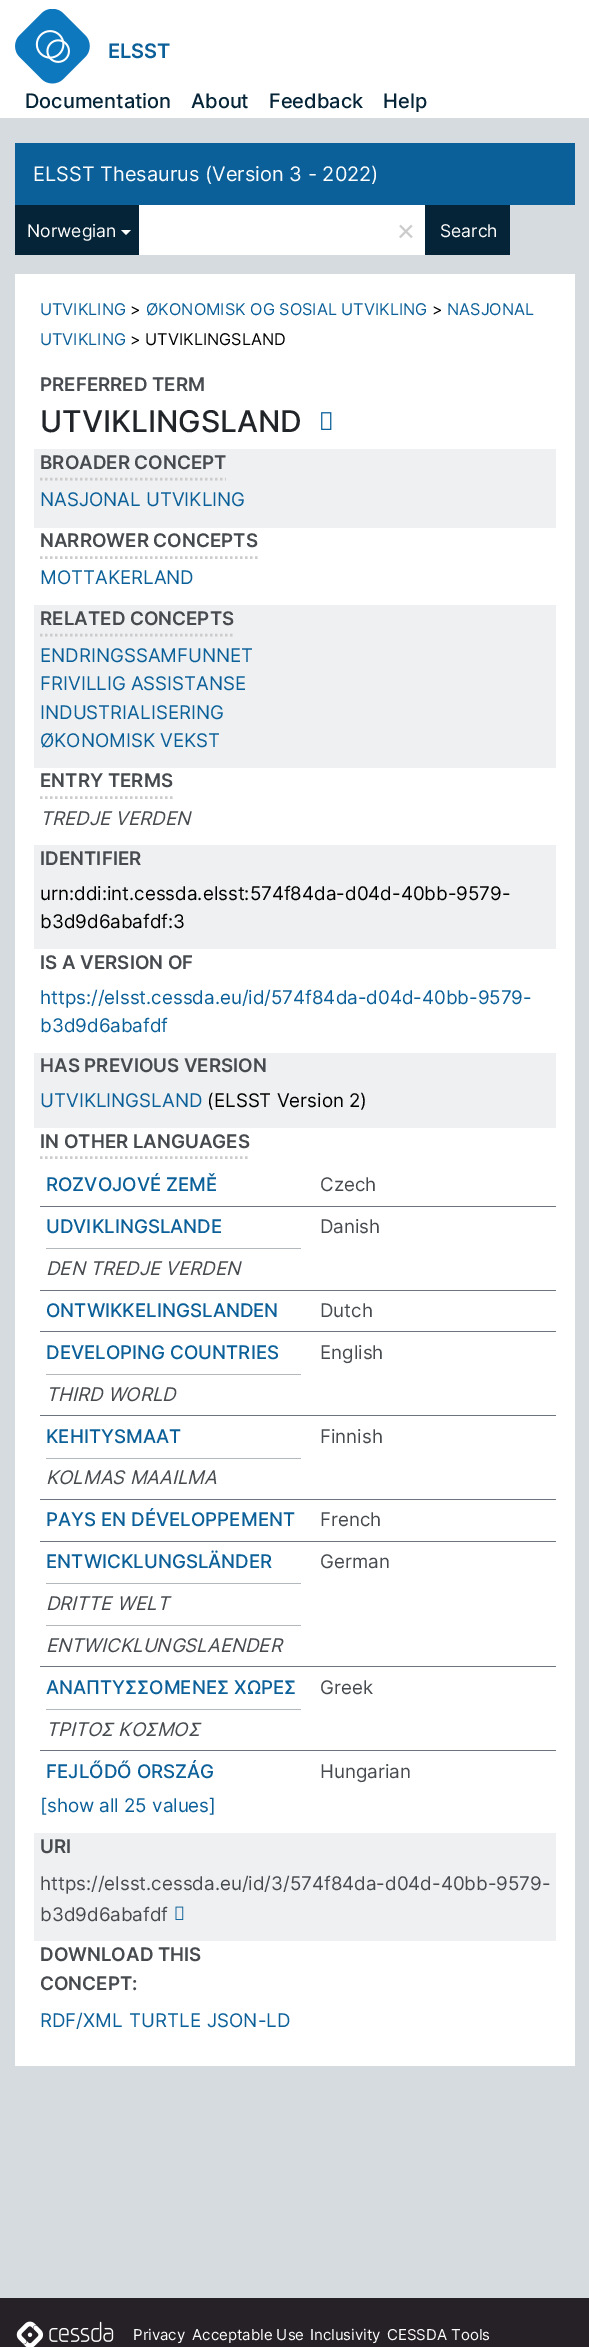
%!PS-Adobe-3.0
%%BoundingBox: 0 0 589 2347
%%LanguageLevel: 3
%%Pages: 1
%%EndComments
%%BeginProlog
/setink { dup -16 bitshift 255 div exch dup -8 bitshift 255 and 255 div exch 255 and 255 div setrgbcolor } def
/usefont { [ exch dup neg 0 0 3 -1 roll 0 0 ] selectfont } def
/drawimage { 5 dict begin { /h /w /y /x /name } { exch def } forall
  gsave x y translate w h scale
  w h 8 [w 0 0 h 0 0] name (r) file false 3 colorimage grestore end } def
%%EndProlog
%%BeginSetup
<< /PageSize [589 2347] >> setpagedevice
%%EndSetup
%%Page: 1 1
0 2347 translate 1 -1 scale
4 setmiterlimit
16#D5DBDE setink
0 0 589 2347 rectfill
16#FFFFFF setink
0 0 589 118 rectfill
(img1.raw) 15 9 75 75 drawimage
/Inter-SemiBold 20 usefont
16#0B6099 setink
108 58 moveto (ELSST) show
/Inter-Medium 20 usefont
16#052438 setink
[
    [(Documentation) 25 108]
    [(About) 191 108]
    [(Feedback) 269 108]
    [(Help) 383 108]
] { aload pop moveto show } forall
16#0B6099 setink
15 143 560 62 rectfill
/Inter-Regular 20 usefont
16#FDFDFE setink
33 181 moveto (ELSST Thesaurus \(Version 3 - 2022\)) show
16#052438 setink
15 205 124 50 rectfill
/Inter-Regular 17.5 usefont
16#FDFDFE setink
27 237 moveto (Norwegian) show
16#FFFFFF setink
121 230 moveto 131 230 lineto 126 235 lineto closepath fill
139 205 286 50 rectfill
/Inter-Regular 30 usefont
16#CCCCCC setink
396 240 moveto (×) show
16#052438 setink
425 205 85 50 rectfill
/Inter-Regular 17.5 usefont
16#FDFDFE setink
440 237 moveto (Search) show
16#FFFFFF setink
15 274 560 1792 rectfill
/Inter-Regular 16.25 usefont
16#0B6099 setink
40 315 moveto (UTVIKLING) show
16#000000 setink
130 315 moveto (>) show
16#0B6099 setink
146 315 moveto (ØKONOMISK OG SOSIAL UTVIKLING) show
16#000000 setink
432 315 moveto (>) show
16#0B6099 setink
447 315 moveto (NASJONAL) show
40 345 moveto (UTVIKLING) show
16#000000 setink
130 345 moveto (> UTVIKLINGSLAND) show
/Inter-SemiBold 18.75 usefont
16#474B4F setink
40 391 moveto (PREFERRED TERM) show
/Inter-Medium 30 usefont
16#212529 setink
40 432 moveto (UTVIKLINGSLAND) show
(img2.raw) 321 412 11 18 drawimage
16#EFF0F1 setink
34 449 522 79 rectfill
16#CCCCCC setink
2.5 setlinewidth
[2.5 2.5] 0 setdash
40 479 moveto 226 479 lineto stroke
/Inter-SemiBold 18.75 usefont
16#474B4F setink
40 469 moveto (BROADER CONCEPT) show
/Inter-Regular 18.75 usefont
16#0B6099 setink
40 506 moveto (NASJONAL UTVIKLING) show
16#CCCCCC setink
40 557.5 moveto 257.5 557.5 lineto stroke
/Inter-SemiBold 18.75 usefont
16#474B4F setink
40 547 moveto (NARROWER CONCEPTS) show
/Inter-Regular 18.75 usefont
16#0B6099 setink
40 584 moveto (MOTTAKERLAND) show
16#EFF0F1 setink
34 605 522 163 rectfill
16#CCCCCC setink
40 635 moveto 234 635 lineto stroke
/Inter-SemiBold 18.75 usefont
16#474B4F setink
40 625 moveto (RELATED CONCEPTS) show
/Inter-Regular 18.75 usefont
16#0B6099 setink
[
    [(ENDRINGSSAMFUNNET) 40 662]
    [(FRIVILLIG ASSISTANSE) 40 690]
    [(INDUSTRIALISERING) 40 719]
    [(ØKONOMISK VEKST) 40 747]
] { aload pop moveto show } forall
16#CCCCCC setink
40 797.5 moveto 172.5 797.5 lineto stroke
/Inter-SemiBold 18.75 usefont
16#474B4F setink
40 787 moveto (ENTRY TERMS) show
/Inter-Italic 18.75 usefont
40 825 moveto (TREDJE VERDEN) show
16#EFF0F1 setink
34 845 522 104 rectfill
/Inter-SemiBold 18.75 usefont
16#474B4F setink
40 865 moveto (IDENTIFIER) show
/Inter-Regular 18.75 usefont
16#000000 setink
40 900 moveto (urn:ddi:int.cessda.elsst:574f84da-d04d-40bb-9579-) show
40 928 moveto (b3d9d6abafdf:3) show
/Inter-SemiBold 18.75 usefont
16#474B4F setink
40 969 moveto (IS A VERSION OF) show
/Inter-Regular 18.75 usefont
16#0B6099 setink
40 1004 moveto (https://elsst.cessda.eu/id/574f84da-d04d-40bb-9579-) show
40 1032 moveto (b3d9d6abafdf) show
16#EFF0F1 setink
34 1053 522 75 rectfill
/Inter-SemiBold 18.75 usefont
16#474B4F setink
40 1072 moveto (HAS PREVIOUS VERSION) show
/Inter-Regular 18.75 usefont
16#0B6099 setink
40 1107 moveto (UTVIKLINGSLAND) show
16#000000 setink
207 1107 moveto (\(ELSST Version 2\)) show
16#CCCCCC setink
40 1157.5 moveto 250 1157.5 lineto stroke
/Inter-SemiBold 18.75 usefont
16#474B4F setink
40 1148 moveto (IN OTHER LANGUAGES) show
/Inter-Medium 18.75 usefont
16#0B6099 setink
46 1191 moveto (ROZVOJOVÉ ZEMĚ) show
/Inter-Regular 18.75 usefont
16#474B4F setink
320 1191 moveto (Czech) show
16#6C757D setink
40 1206 516 1 rectfill
/Inter-Medium 18.75 usefont
16#0B6099 setink
46 1233 moveto (UDVIKLINGSLANDE) show
/Inter-Regular 18.75 usefont
16#474B4F setink
320 1233 moveto (Danish) show
16#B3B8BD setink
46 1248 255 1 rectfill
/Inter-Italic 18.75 usefont
16#474B4F setink
46 1275 moveto (DEN TREDJE VERDEN) show
16#6C757D setink
40 1290 516 1 rectfill
/Inter-Medium 18.75 usefont
16#0B6099 setink
46 1317 moveto (ONTWIKKELINGSLANDEN) show
/Inter-Regular 18.75 usefont
16#474B4F setink
320 1317 moveto (Dutch) show
16#6C757D setink
40 1331 516 1 rectfill
/Inter-Medium 18.75 usefont
16#0B6099 setink
46 1359 moveto (DEVELOPING COUNTRIES) show
/Inter-Regular 18.75 usefont
16#474B4F setink
320 1359 moveto (English) show
16#B3B8BD setink
46 1374 255 1 rectfill
/Inter-Italic 18.75 usefont
16#474B4F setink
46 1401 moveto (THIRD WORLD) show
16#6C757D setink
40 1415 516 1 rectfill
/Inter-Medium 18.75 usefont
16#0B6099 setink
46 1443 moveto (KEHITYSMAAT) show
/Inter-Regular 18.75 usefont
16#474B4F setink
320 1443 moveto (Finnish) show
16#B3B8BD setink
46 1458 255 1 rectfill
/Inter-Italic 18.75 usefont
16#474B4F setink
46 1484 moveto (KOLMAS MAAILMA) show
16#6C757D setink
40 1499 516 1 rectfill
/Inter-Medium 18.75 usefont
16#0B6099 setink
46 1526 moveto (PAYS EN DÉVELOPPEMENT) show
/Inter-Regular 18.75 usefont
16#474B4F setink
320 1526 moveto (French) show
16#6C757D setink
40 1541 516 1 rectfill
/Inter-Medium 18.75 usefont
16#0B6099 setink
46 1568 moveto (ENTWICKLUNGSLÄNDER) show
/Inter-Regular 18.75 usefont
16#474B4F setink
320 1568 moveto (German) show
16#B3B8BD setink
46 1583 255 1 rectfill
/Inter-Italic 18.75 usefont
16#474B4F setink
46 1610 moveto (DRITTE WELT) show
16#B3B8BD setink
46 1625 255 1 rectfill
16#474B4F setink
46 1652 moveto (ENTWICKLUNGSLAENDER) show
16#6C757D setink
40 1666 516 1 rectfill
/Inter-Medium 18.75 usefont
16#0B6099 setink
46 1694 moveto (ΑΝΑΠΤΥΣΣΟΜΕΝΕΣ ΧΩΡΕΣ) show
/Inter-Regular 18.75 usefont
16#474B4F setink
320 1694 moveto (Greek) show
16#B3B8BD setink
46 1709 255 1 rectfill
/Inter-Italic 18.75 usefont
16#474B4F setink
46 1736 moveto (ΤΡΙΤΟΣ ΚΟΣΜΟΣ) show
16#6C757D setink
40 1750 516 1 rectfill
/Inter-Medium 18.75 usefont
16#0B6099 setink
46 1778 moveto (FEJLŐDŐ ORSZÁG) show
/Inter-Regular 18.75 usefont
16#474B4F setink
320 1778 moveto (Hungarian) show
16#0B6099 setink
40 1812 moveto ([show all 25 values]) show
16#EFF0F1 setink
34 1833 522 108 rectfill
/Inter-SemiBold 18.75 usefont
16#474B4F setink
40 1853 moveto (URI) show
/Inter-Regular 18.75 usefont
40 1890 moveto (https://elsst.cessda.eu/id/3/574f84da-d04d-40bb-9579-) show
40 1921 moveto (b3d9d6abafdf) show
(img3.raw) 175 1906 9 14 drawimage
/Inter-SemiBold 18.75 usefont
40 1961 moveto (DOWNLOAD THIS) show
40 1990 moveto (CONCEPT:) show
/Inter-Regular 18.75 usefont
16#0B6099 setink
[
    [(RDF/XML) 40 2027]
    [(TURTLE) 129 2027]
    [(JSON-LD) 207 2027]
] { aload pop moveto show } forall
16#262126 setink
0 2298 589 49 rectfill
(img4.raw) 16 2321 98 26 drawimage
/Inter-Regular 15 usefont
16#FDFDFE setink
[
    [(Privacy) 133 2340]
    [(Acceptable Use) 192 2340]
    [(Inclusivity) 310 2340]
    [(CESSDA Tools) 387 2340]
] { aload pop moveto show } forall
showpage
%%EOF
